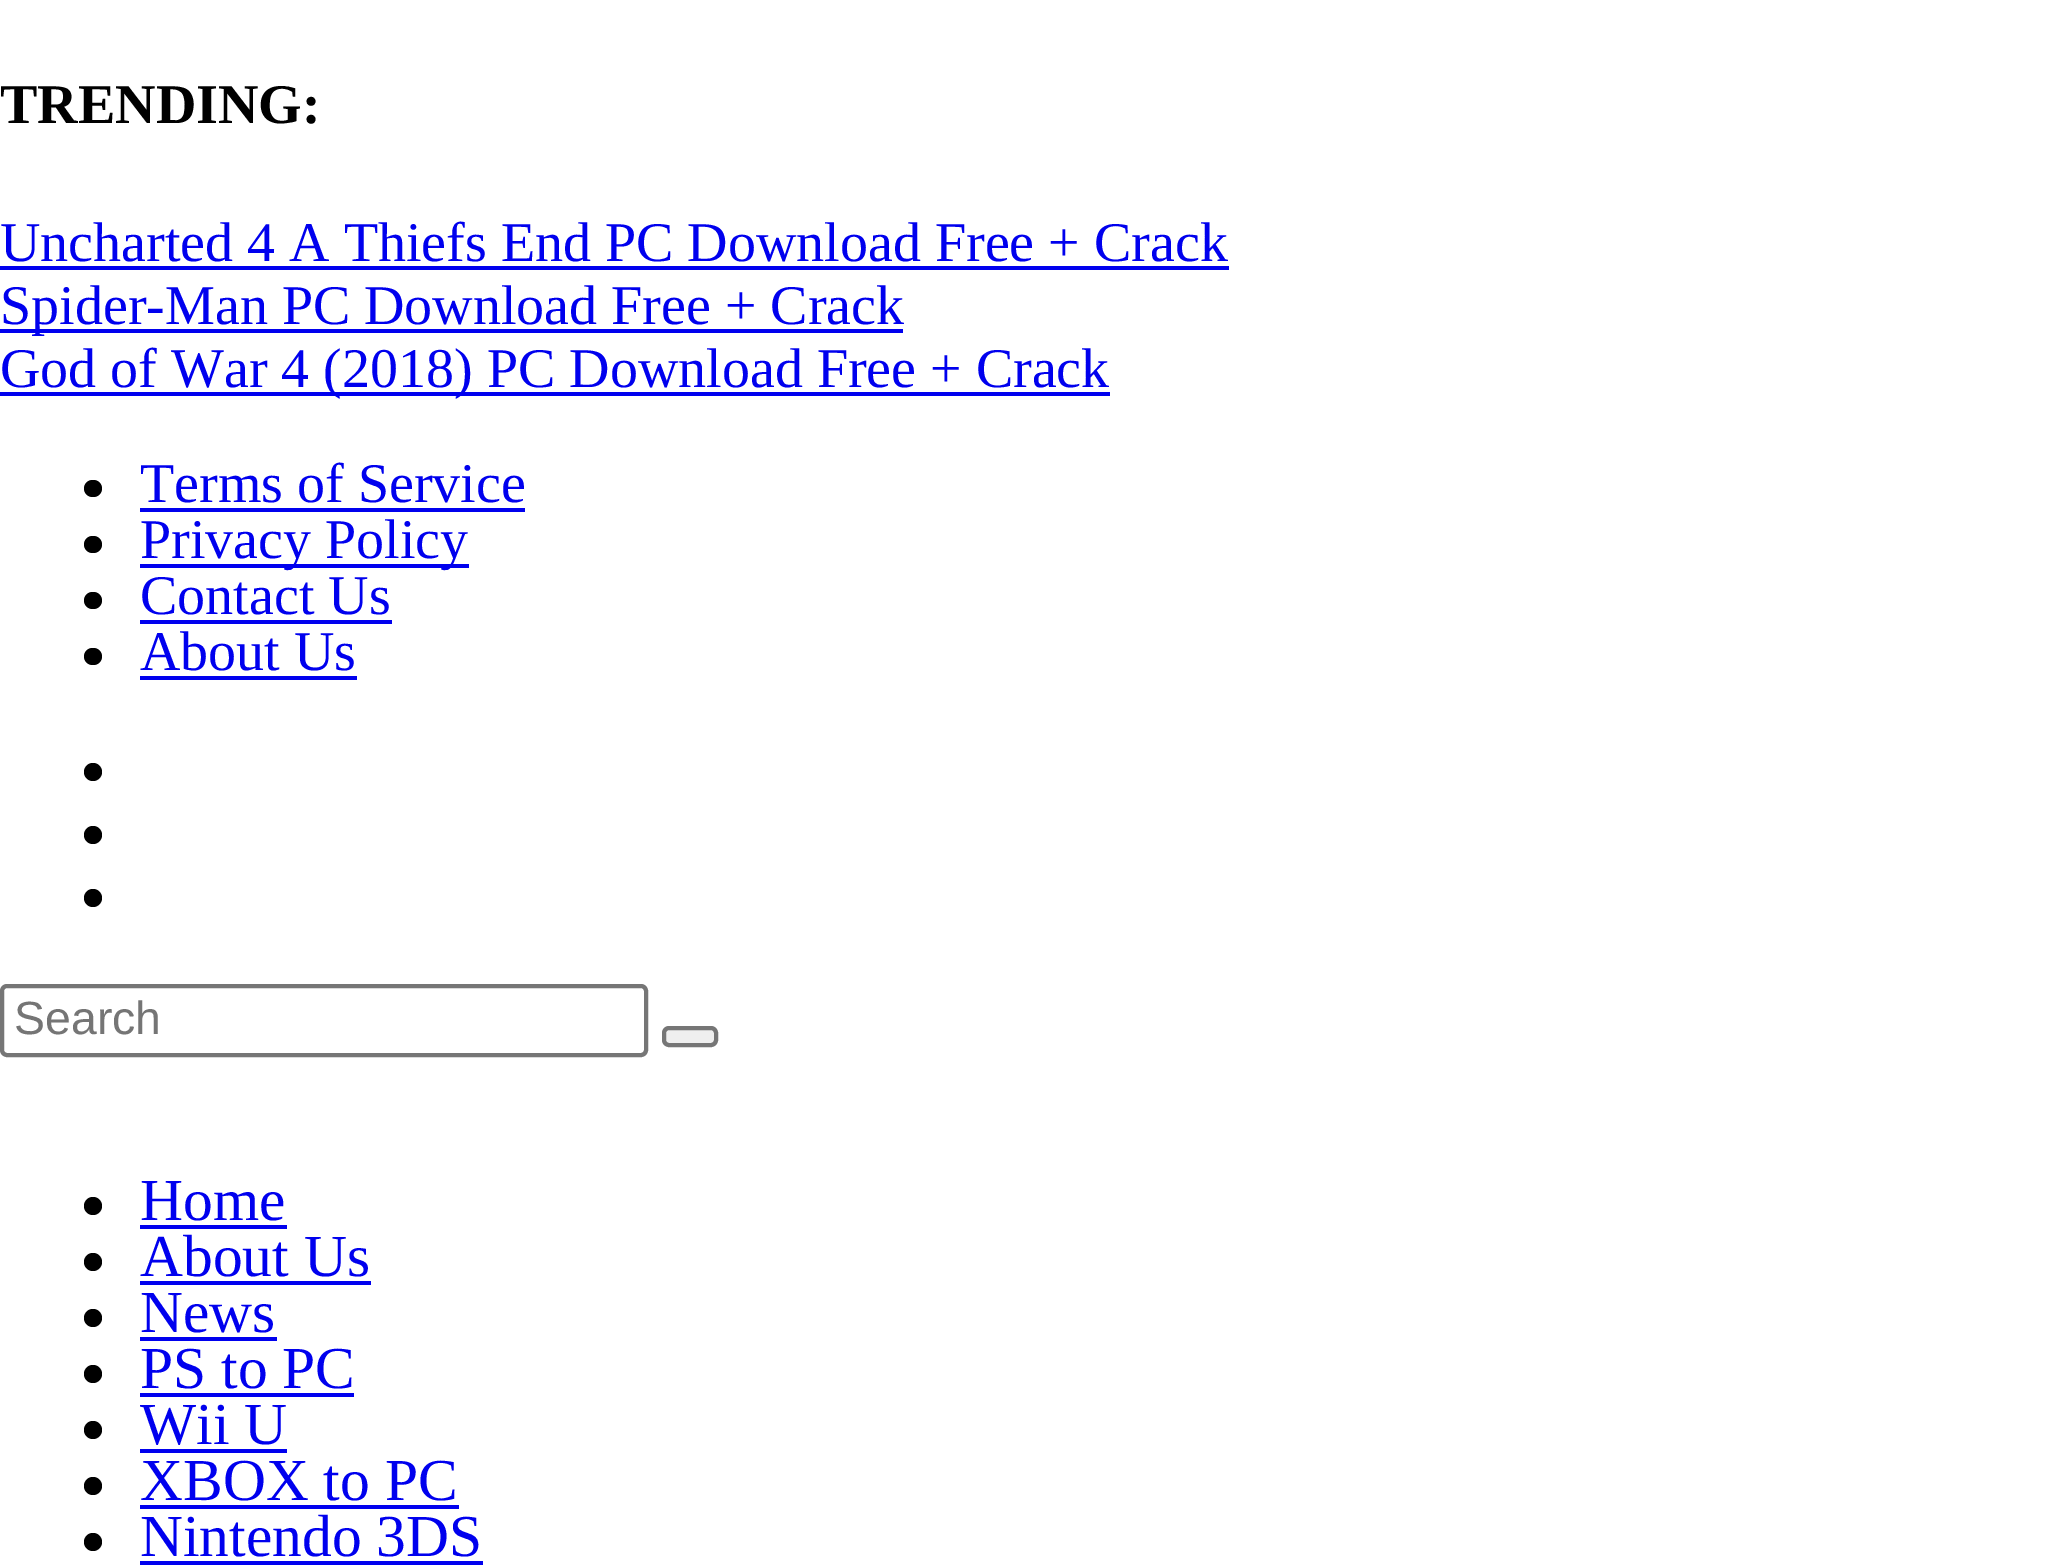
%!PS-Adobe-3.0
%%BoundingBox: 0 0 2061 1568
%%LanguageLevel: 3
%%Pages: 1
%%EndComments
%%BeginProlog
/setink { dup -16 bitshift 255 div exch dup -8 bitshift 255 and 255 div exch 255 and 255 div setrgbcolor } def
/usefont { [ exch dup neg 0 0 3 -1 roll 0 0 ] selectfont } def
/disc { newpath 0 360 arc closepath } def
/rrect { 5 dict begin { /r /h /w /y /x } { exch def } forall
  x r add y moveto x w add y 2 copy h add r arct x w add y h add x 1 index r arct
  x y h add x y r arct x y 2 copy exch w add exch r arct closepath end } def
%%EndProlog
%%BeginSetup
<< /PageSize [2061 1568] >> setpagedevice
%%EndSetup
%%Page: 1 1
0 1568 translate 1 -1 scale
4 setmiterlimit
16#FFFFFF setink
0 0 2061 1568 rectfill
/LiberationSerif-Bold 56 usefont
16#000000 setink
0 123 moveto (TRENDING:) show
/LiberationSerif-Regular 56 usefont
16#0000EE setink
0 261 moveto (Uncharted 4 A Thiefs End PC Download Free + Crack) show
0 266 1229 4 rectfill
0 329 903 4 rectfill
0 324 moveto (Spider-Man PC Download Free + Crack) show
0 392 1110 4 rectfill
0 387 moveto (God of War 4 \(2018\) PC Download Free + Crack) show
16#000000 setink
84 480 18 17 8.5 rrect fill
16#0000EE setink
140 502 moveto (Terms of Service) show
140 508 385 4 rectfill
16#000000 setink
84 536 18 17 8.5 rrect fill
16#0000EE setink
140 564 329 4 rectfill
140 558 moveto (Privacy Policy) show
16#000000 setink
84 592 18 17 8.5 rrect fill
16#0000EE setink
140 614 moveto (Contact Us) show
140 620 252 4 rectfill
16#000000 setink
84 648 18 17 8.5 rrect fill
16#0000EE setink
140 670 moveto (About Us) show
140 676 217 4 rectfill
16#000000 setink
93 772 9 disc fill
93 835 9 disc fill
93 898 9 disc fill
16#767676 setink
4 setlinewidth
2 986 644 69 5 rrect stroke
/LiberationSans-Regular 46.5 usefont
16#757575 setink
14 1034 moveto (Search) show
16#EFEFEF setink
664 1028 52 17 5 rrect gsave fill grestore
16#767676 setink
stroke
16#000000 setink
93 1206 9 disc fill
/LiberationSerif-Regular 59.5 usefont
16#0000EE setink
140 1220 moveto (Home) show
140 1225 147 4 rectfill
16#000000 setink
93 1262 9 disc fill
16#0000EE setink
140 1276 moveto (About Us) show
140 1281 231 4 rectfill
16#000000 setink
93 1318 9 disc fill
16#0000EE setink
140 1332 moveto (News) show
140 1337 137 4 rectfill
16#000000 setink
93 1374 9 disc fill
16#0000EE setink
140 1388 moveto (PS to PC) show
140 1393 214 4 rectfill
16#000000 setink
93 1430 9 disc fill
16#0000EE setink
140 1444 moveto (Wii U) show
140 1449 147 4 rectfill
16#000000 setink
93 1486 9 disc fill
16#0000EE setink
140 1500 moveto (XBOX to PC) show
140 1505 319 4 rectfill
16#000000 setink
93 1542 9 disc fill
16#0000EE setink
140 1556 moveto (Nintendo 3DS) show
140 1561 343 4 rectfill
showpage
%%EOF
